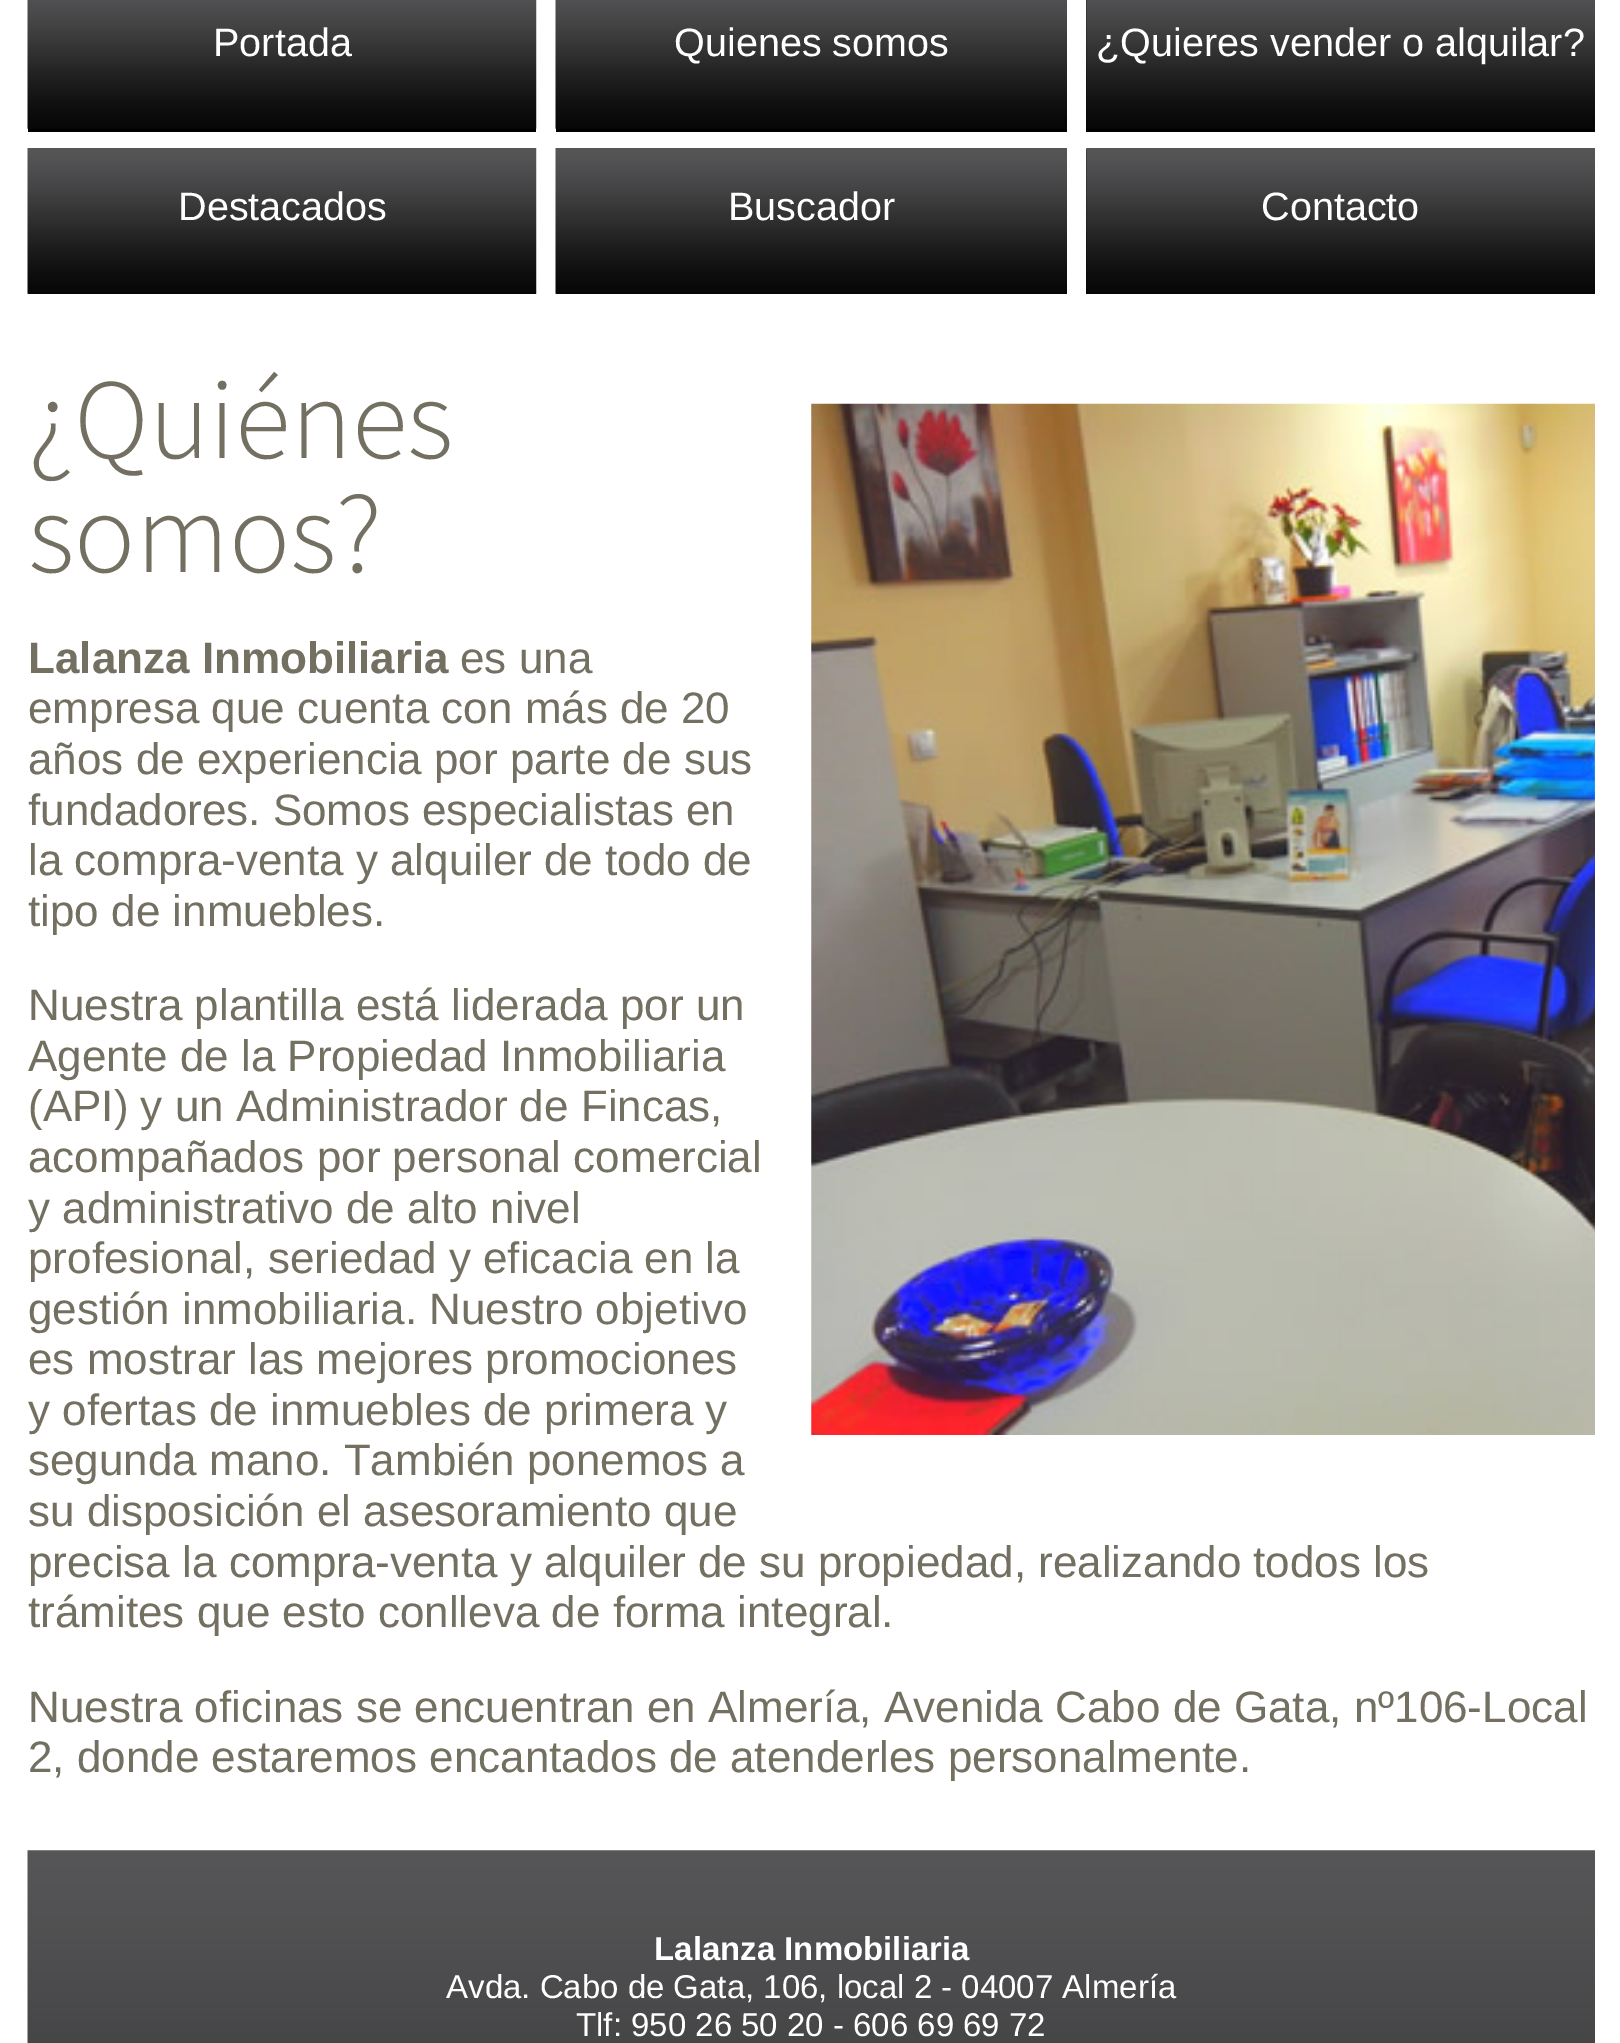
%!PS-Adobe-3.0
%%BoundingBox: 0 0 1620 2043
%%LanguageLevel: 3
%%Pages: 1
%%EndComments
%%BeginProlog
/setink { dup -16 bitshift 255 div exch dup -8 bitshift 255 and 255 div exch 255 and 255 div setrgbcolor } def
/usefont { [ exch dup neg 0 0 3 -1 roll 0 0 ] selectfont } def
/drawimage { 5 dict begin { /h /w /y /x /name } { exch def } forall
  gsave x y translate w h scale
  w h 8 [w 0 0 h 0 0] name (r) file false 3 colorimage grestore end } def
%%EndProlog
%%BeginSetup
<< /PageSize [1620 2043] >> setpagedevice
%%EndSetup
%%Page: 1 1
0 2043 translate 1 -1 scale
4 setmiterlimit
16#FFFFFF setink
0 0 1620 2043 rectfill
16#000000 setink
28 128 508 4 rectfill
(img1.raw) 27 0 510 129 drawimage
/LiberationSans-Regular 39.6 usefont
16#FFFFFF setink
213 56 moveto (Portada) show
16#000000 setink
556 128 511 4 rectfill
(img2.raw) 555 0 512 129 drawimage
16#FFFFFF setink
674 56 moveto (Quienes somos) show
16#000000 setink
1086 0 509 132 rectfill
(img3.raw) 1086 0 509 129 drawimage
16#FFFFFF setink
1096 56 moveto (¿Quieres vender o alquilar?) show
(img4.raw) 27 148 510 146 drawimage
178 220 moveto (Destacados) show
(img5.raw) 555 148 512 146 drawimage
728 220 moveto (Buscador) show
16#000000 setink
1086 149 509 145 rectfill
(img6.raw) 1086 148 509 146 drawimage
16#FFFFFF setink
1261 220 moveto (Contacto) show
/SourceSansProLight-Light 114.5 usefont
16#736F61 setink
28 458 moveto (¿Quiénes) show
28 572 moveto (somos?) show
(img7.raw) 811 403 784 1032 drawimage
/LiberationSans-Bold 44 usefont
28 673 moveto (Lalanza Inmobiliaria) show
/LiberationSans-Regular 44 usefont
[
    [(es una) 460 673]
    [(empresa que cuenta con más de 20) 28 723]
    [(años de experiencia por parte de sus) 28 774]
    [(fundadores. Somos especialistas en) 28 825]
    [(la compra-venta y alquiler de todo de) 28 875]
    [(tipo de inmuebles.) 28 926]
    [(Nuestra plantilla está liderada por un) 28 1020]
    [(Agente de la Propiedad Inmobiliaria) 28 1071]
    [(\(API\) y un Administrador de Fincas,) 28 1121]
    [(acompañados por personal comercial) 28 1172]
    [(y administrativo de alto nivel) 28 1223]
    [(profesional, seriedad y eficacia en la) 28 1273]
    [(gestión inmobiliaria. Nuestro objetivo) 28 1324]
    [(es mostrar las mejores promociones) 28 1374]
    [(y ofertas de inmuebles de primera y) 28 1425]
    [(segunda mano. También ponemos a) 28 1475]
    [(su disposición el asesoramiento que) 28 1526]
    [(precisa la compra-venta y alquiler de su propiedad, realizando todos los) 28 1577]
    [(trámites que esto conlleva de forma integral.) 28 1627]
    [(Nuestra oficinas se encuentran en Almería, Avenida Cabo de Gata, nº106-Local) 28 1722]
    [(2, donde estaremos encantados de atenderles personalmente.) 28 1772]
] { aload pop moveto show } forall
(img8.raw) 27 1850 1568 193 drawimage
/LiberationSans-Bold 33 usefont
16#FFFFFF setink
654 1960 moveto (Lalanza Inmobiliaria) show
/LiberationSans-Regular 33 usefont
446 1998 moveto (Avda. Cabo de Gata, 106, local 2 - 04007 Almería) show
576 2036 moveto (Tlf: 950 26 50 20 - 606 69 69 72) show
showpage
%%EOF
